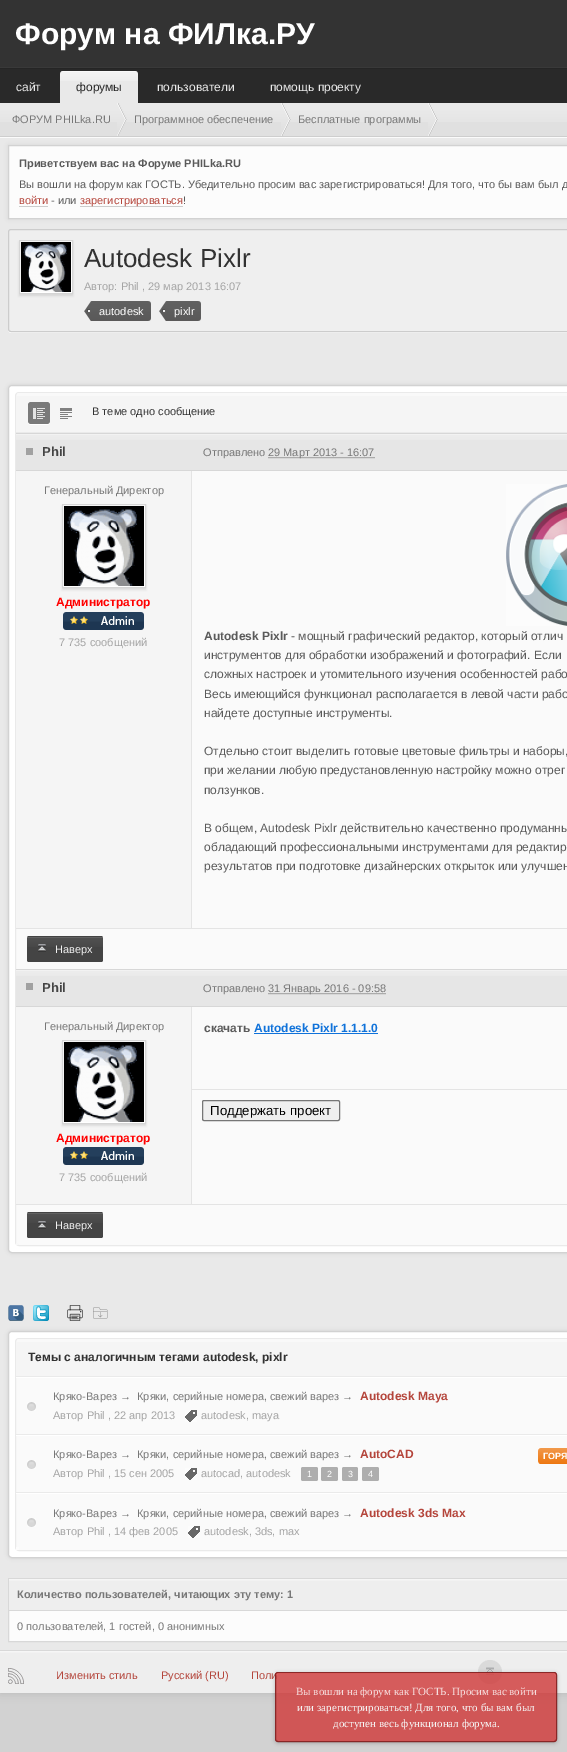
%!PS-Adobe-3.0
%%BoundingBox: 0 0 567 1752
%%LanguageLevel: 3
%%Pages: 1
%%EndComments
%%BeginProlog
/setink { dup -16 bitshift 255 div exch dup -8 bitshift 255 and 255 div exch 255 and 255 div setrgbcolor } def
/usefont { [ exch dup neg 0 0 3 -1 roll 0 0 ] selectfont } def
/setalpha { dup .setfillconstantalpha .setstrokeconstantalpha } def
/disc { newpath 0 360 arc closepath } def
/rrect { 5 dict begin { /r /h /w /y /x } { exch def } forall
  x r add y moveto x w add y 2 copy h add r arct x w add y h add x 1 index r arct
  x y h add x y r arct x y 2 copy exch w add exch r arct closepath end } def
/softshadow { 12 dict begin { /a /b /q /h /w /y /x } { exch def } forall gsave /was 0 def
  9 -2 -9 { dup b mul 4 div /e exch def 1 sub .425 mul 2.718 exch exp 1 add a .99 .min exch div /now exch def
    1 1 now sub 1 was sub div sub setalpha /was now def
    w h .min e 2 mul add 0 gt { x e sub y e sub w e 2 mul add h e 2 mul add
      q e add b .6 mul add w h .min 2 div e add .min 0 .max rrect fill } if } for grestore end } def
/drawimage { 5 dict begin { /h /w /y /x /name } { exch def } forall
  gsave x y translate w h scale
  w h 8 [w 0 0 h 0 0] name (r) file false 3 colorimage grestore end } def
%%EndProlog
%%BeginSetup
<< /PageSize [567 1752] /PageUsesTransparency true >> setpagedevice
%%EndSetup
%%Page: 1 1
0 .pushpdf14devicefilter
0 1752 translate 1 -1 scale
4 setmiterlimit
16#D2D2D2 setink
0 0 567 1752 rectfill
16#000000 setink
0 0 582 1693 0 5 0.12 softshadow
16#333333 setink
0 0 567 67 rectfill
16#393939 setink
0 67 567 1 rectfill
/LiberationSans-Bold 30 usefont
16#FFFFFF setink
15 44 moveto (Форум на ФИЛка.РУ) show
16#292929 setink
0 69 567 34 rectfill
16#252525 setink
0 68 567 1 rectfill
/LiberationSans-Regular 12 usefont
16#E9E9E9 setink
16 91 moveto (сайт) show
63 71 moveto 135 71 lineto 136.5 71 138 72.5 138 74 curveto 138 103 lineto 60 103 lineto 60 74 lineto 60 72.5 61.5 71 63 71 curveto closepath fill
(img1.raw) 60 71 78 10 drawimage
16#292929 setink
76 91 moveto (форумы) show
16#E9E9E9 setink
157 91 moveto (пользователи) show
270 91 moveto (помощь проекту) show
[
    [0 138 567 1512 16#E9E9E9]
    [0 137 567 1 16#FBFBFB]
    [0 122 567 14 16#E0E0E0]
] { aload pop setink rectfill } forall
(img2.raw) 0 103 567 19 drawimage
16#CECECE setink
0 136 567 1 rectfill
(img3.raw) 117 103 10 33 drawimage
/LiberationSans-Regular 11 usefont
16#777777 setink
12 123 moveto (ФОРУМ PHILka.RU) show
(img4.raw) 281 103 10 33 drawimage
134 123 moveto (Программное обеспечение) show
(img4.raw) 428 103 10 33 drawimage
298 123 moveto (Бесплатные программы) show
16#000000 setink
8 145 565 74 0 2 0.07 softshadow
16#FCFCFC setink
8.5 145.5 moveto 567.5 145.5 lineto 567.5 218.5 lineto 8.5 218.5 lineto closepath gsave fill grestore
16#D2D2D2 setink
stroke
/LiberationSans-Bold 11 usefont
16#5A5A5A setink
19 167 moveto (Приветствуем вас на Форуме PHILka.RU) show
/LiberationSans-Regular 11 usefont
19 188 moveto (Вы вошли на форум как ГОСТЬ. Убедительно просим вас зарегистрироваться! Для того, что бы вам был д) show
16#B4453B setink
19 204 moveto (войти) show
16#CCCCCC setink
19 206 29 1 rectfill
16#5A5A5A setink
51 204 moveto (- или) show
16#CCCCCC setink
80 206 103 1 rectfill
16#B4453B setink
80 204 moveto (зарегистрироваться) show
16#5A5A5A setink
183 204 moveto (!) show
16#FBFBFB setink
8 329 moveto 8 331 9 333 11 333 curveto 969 333 lineto 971 333 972 331 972 329 curveto 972 331 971 332 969 332 curveto 11 332 lineto 9 332 8 331 8 329 curveto closepath fill
16#EFEFEF setink
8.5 229.5 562 102 2.5 rrect gsave fill grestore
16#CCCCCC setink
stroke
16#000000 setink
19 242 54 54 0 1 0.1 softshadow
16#FFFFFF setink
19.5 240.5 moveto 72.5 240.5 lineto 72.5 293.5 lineto 19.5 293.5 lineto closepath gsave fill grestore
16#D5D5D5 setink
stroke
(img5.raw) 21 242 50 50 drawimage
/LiberationSans-Regular 26 usefont
16#323232 setink
84 267 moveto (Autodesk Pixlr) show
/LiberationSans-Regular 11 usefont
16#A4A4A4 setink
84 290 moveto (Автор: Phil , 29 мар 2013 16:07) show
(img6.raw) 84 301 67 20 drawimage
16#FFFFFF setink
99 315 moveto (autodesk) show
(img7.raw) 159 301 42 20 drawimage
174 315 moveto (pixlr) show
16#000000 setink
8 385 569 868 4 2 0.1 softshadow
16#FFFFFF setink
8.5 385.5 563 867 3.5 rrect gsave fill grestore
16#D2D2D2 setink
stroke
16#FAFAFA setink
15.5 392.5 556 853 3.5 rrect gsave fill grestore
16#EAEAEA setink
stroke
16#F5F5F5 setink
20 393 moveto 567 393 lineto 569 393 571 395 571 397 curveto 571 433 lineto 16 433 lineto 16 397 lineto 16 395 18 393 20 393 curveto closepath fill
0.43 setalpha
16#FFFFFF setink
17 393 550 3 rectfill
1 setalpha
16#EAEAEA setink
16 432 551 1 rectfill
16#FFFFFF setink
28 421 moveto 28 425 30 425 33.5 425 curveto 44.5 425 lineto 48 425 50 425 50 421 curveto 50 422.5 48.5 424 47 424 curveto 31 424 lineto 29.5 424 28 422.5 28 421 curveto closepath fill
0.5 setalpha
16#000000 setink
28 402 22 22 3 rrect fill
1 setalpha
(img8.raw) 33 408 12 11 drawimage
(img9.raw) 60 408 12 11 drawimage
16#323232 setink
92 415 moveto (В теме одно сообщение) show
16#F5F5F5 setink
16 471 175 457 rectfill
16#E6E6E6 setink
16 434 551 36 rectfill
(img10.raw) 16 434 551 6 drawimage
[
    [16 433 551 1 16#D7D7D7]
    [16 470 551 1 16#D7D7D7]
    [26 448 7 7 16#A1A1A1]
] { aload pop setink rectfill } forall
/LiberationSans-Bold 13 usefont
16#444444 setink
42 456 moveto (Phil) show
/LiberationSans-Regular 11 usefont
16#777777 setink
203 456 moveto (Отправлено) show
[1 1] 0 setdash
268.5 457.5 moveto 375 457.5 lineto stroke
268 456 moveto (29 Март 2013 - 16:07) show
44 494 moveto (Генеральный Директор) show
16#000000 setink
62 506 84 84 0 1 0.1 softshadow
16#FFFFFF setink
62.5 504.5 moveto 145.5 504.5 lineto 145.5 587.5 lineto 62.5 587.5 lineto closepath gsave fill grestore
16#D5D5D5 setink
[] 0 setdash
stroke
(img11.raw) 64 506 80 80 drawimage
/LiberationSans-Bold 12 usefont
16#FF0000 setink
56 606 moveto (Администратор) show
(img12.raw) 63 612 81 18 drawimage
/LiberationSans-Regular 11 usefont
16#A4A4A4 setink
59 646 moveto (7 735 сообщений) show
16#E4E4E4 setink
191 471 1 457 rectfill
(img13.raw) 506 484 61 142 drawimage
/LiberationSans-Bold 12 usefont
16#5A5A5A setink
204 640 moveto (Autodesk Pixlr) show
/LiberationSans-Regular 12 usefont
[
    [(- мощный графический редактор, который отлич) 291 640]
    [(инструментов для обработки изображений и фотографий. Если) 204 659]
    [(сложных настроек и утомительного изучения особенностей рабо) 204 678]
    [(Весь имеющийся функционал располагается в левой части рабо) 204 698]
    [(найдете доступные инструменты.) 204 717]
    [(Отдельно стоит выделить готовые цветовые фильтры и наборы,) 204 755]
    [(при желании любую предустановленную настройку можно отрег) 204 774]
    [(ползунков.) 204 794]
    [(В общем, Autodesk Pixlr действительно качественно продуманны) 204 832]
    [(обладающий профессиональными инструментами для редактир) 204 851]
    [(результатов при подготовке дизайнерских открыток или улучшен) 204 870]
] { aload pop moveto show } forall
16#E4E4E4 setink
16 928 551 1 rectfill
16#444444 setink
27 936 76 26 2 rrect fill
(img14.raw) 27 937 76 10 drawimage
(img15.raw) 38 944 8 8 drawimage
/LiberationSans-Regular 11 usefont
16#F0F0F0 setink
55 953 moveto (Наверх) show
16#F5F5F5 setink
16 1007 175 197 rectfill
16#E6E6E6 setink
16 970 551 36 rectfill
(img10.raw) 16 970 551 6 drawimage
[
    [16 969 551 1 16#D7D7D7]
    [16 1006 551 1 16#D7D7D7]
    [26 983 7 7 16#A1A1A1]
] { aload pop setink rectfill } forall
/LiberationSans-Bold 13 usefont
16#444444 setink
42 992 moveto (Phil) show
/LiberationSans-Regular 11 usefont
16#777777 setink
203 992 moveto (Отправлено) show
[1 1] 0 setdash
268.5 993.5 moveto 386.5 993.5 lineto stroke
268 992 moveto (31 Январь 2016 - 09:58) show
44 1030 moveto (Генеральный Директор) show
16#000000 setink
62 1042 84 84 0 1 0.1 softshadow
16#FFFFFF setink
62.5 1040.5 moveto 145.5 1040.5 lineto 145.5 1123.5 lineto 62.5 1123.5 lineto closepath gsave fill grestore
16#D5D5D5 setink
[] 0 setdash
stroke
(img11.raw) 64 1042 80 80 drawimage
/LiberationSans-Bold 12 usefont
16#FF0000 setink
56 1142 moveto (Администратор) show
(img12.raw) 63 1147 81 18 drawimage
/LiberationSans-Regular 11 usefont
16#A4A4A4 setink
59 1181 moveto (7 735 сообщений) show
16#E4E4E4 setink
191 1007 1 197 rectfill
/LiberationSans-Bold 12 usefont
16#5A5A5A setink
204 1032 moveto (скачать) show
16#0F72DA setink
254 1032 moveto (Autodesk Pixlr 1.1.1.0) show
254 1033 124 1 rectfill
16#E4E4E4 setink
192 1089 375 1 rectfill
16#EFEFEF setink
202.5 1100.5 137 20 1.5 rrect gsave fill grestore
16#767676 setink
stroke
/LiberationSans-Regular 13.25 usefont
16#000000 setink
210 1115 moveto (Поддержать проект) show
16#F8F8F8 setink
16 1243 2 2 rectfill
16#E4E4E4 setink
16 1204 551 1 rectfill
16#444444 setink
27 1212 76 26 2 rrect fill
(img14.raw) 27 1213 76 10 drawimage
(img16.raw) 38 1221 8 8 drawimage
/LiberationSans-Regular 11 usefont
16#F0F0F0 setink
55 1229 moveto (Наверх) show
(img17.raw) 8 1305 16 16 drawimage
(img18.raw) 33 1305 16 16 drawimage
(img19.raw) 67 1305 16 16 drawimage
(img20.raw) 93 1307 15 12 drawimage
16#000000 setink
8 1331 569 227 4 2 0.1 softshadow
16#FFFFFF setink
8.5 1331.5 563 226 3.5 rrect gsave fill grestore
16#D2D2D2 setink
stroke
16#FAFAFA setink
15.5 1338.5 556 212 3.5 rrect gsave fill grestore
16#EAEAEA setink
stroke
16#F5F5F5 setink
20 1339 moveto 567 1339 lineto 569 1339 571 1341 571 1343 curveto 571 1377 lineto 16 1377 lineto 16 1343 lineto 16 1341 18 1339 20 1339 curveto closepath fill
0.43 setalpha
16#FFFFFF setink
17 1339 550 3 rectfill
1 setalpha
16#EAEAEA setink
16 1376 551 1 rectfill
/LiberationSans-Bold 12 usefont
16#323232 setink
28 1361 moveto (Темы с аналогичным тегами autodesk, pixlr) show
[
    [16 1547 3 3 16#FCFCFC]
    [16 1377 551 1 16#FFFFFF]
    [16 1434 551 1 16#EAEAEA]
] { aload pop setink rectfill } forall
(img21.raw) 27 1402 9 9 drawimage
/LiberationSans-Regular 11 usefont
16#777777 setink
53 1400 moveto (Кряко-Варез →) show
137 1400 moveto (Кряки, серийные номера, свежий варез →) show
/LiberationSans-Bold 12 usefont
16#B4453B setink
360 1400 moveto (Autodesk Maya) show
/LiberationSans-Regular 11 usefont
16#A4A4A4 setink
53 1419 moveto (Автор Phil , 22 апр 2013) show
(img22.raw) 185 1410 12 12 drawimage
201 1419 moveto (autodesk, maya) show
16#FFFFFF setink
16 1435 551 1 rectfill
16#EAEAEA setink
16 1492 551 1 rectfill
(img21.raw) 27 1460 9 9 drawimage
16#777777 setink
53 1458 moveto (Кряко-Варез →) show
137 1458 moveto (Кряки, серийные номера, свежий варез →) show
/LiberationSans-Bold 12 usefont
16#B4453B setink
360 1458 moveto (AutoCAD) show
/LiberationSans-Regular 11 usefont
16#A4A4A4 setink
53 1477 moveto (Автор Phil , 15 сен 2005) show
(img22.raw) 185 1468 12 12 drawimage
201 1477 moveto (autocad, autodesk) show
16#AEAEAE setink
301 1467 17 14 2 rrect fill
/LiberationSans-Regular 9 usefont
16#FFFFFF setink
307 1477 moveto (1) show
16#AEAEAE setink
321 1467 17 14 2 rrect fill
16#FFFFFF setink
327 1477 moveto (2) show
16#AEAEAE setink
342 1467 16 14 2 rrect fill
16#FFFFFF setink
348 1477 moveto (3) show
16#AEAEAE setink
362 1467 17 14 2 rrect fill
16#FFFFFF setink
368 1477 moveto (4) show
16#ED7710 setink
538 1448 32 16 3 rrect fill
(img23.raw) 538 1448 29 15 drawimage
/LiberationSans-Bold 9 usefont
16#FFFFFF setink
543 1459 moveto (ГОРЯ) show
16 1493 551 1 rectfill
(img21.raw) 27 1518 9 9 drawimage
/LiberationSans-Regular 11 usefont
16#777777 setink
53 1517 moveto (Кряко-Варез →) show
137 1517 moveto (Кряки, серийные номера, свежий варез →) show
/LiberationSans-Bold 12 usefont
16#B4453B setink
360 1517 moveto (Autodesk 3ds Max) show
/LiberationSans-Regular 11 usefont
16#A4A4A4 setink
53 1535 moveto (Автор Phil , 14 фев 2005) show
(img22.raw) 188 1526 12 12 drawimage
204 1535 moveto (autodesk, 3ds, max) show
16#FCFCFC setink
9 1611 558 30 rectfill
16#D8D8D8 setink
8.5 1578.5 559 63 rectstroke
16#EEEEEE setink
9 1579 558 31 rectfill
(img24.raw) 9 1579 558 2 drawimage
16#D8D8D8 setink
9 1610 558 1 rectfill
/LiberationSans-Bold 11 usefont
16#777777 setink
17 1598 moveto (Количество пользователей, читающих эту тему: 1) show
/LiberationSans-Regular 11 usefont
17 1630 moveto (0 пользователей, 1 гостей, 0 анонимных) show
16#EEEEEE setink
0 1651 567 42 rectfill
(img25.raw) 0 1651 567 2 drawimage
16#D8D8D8 setink
0 1650 567 1 rectfill
(img26.raw) 8 1668 16 16 drawimage
16#B4453B setink
[
    [(Изменить стиль) 56 1679]
    [(Русский \(RU\)) 161 1679]
    [(Поли) 251 1679]
] { aload pop moveto show } forall
0.4 setalpha
16#BDBDBD setink
490 1672 12 disc fill
1 setalpha
(img27.raw) 486 1667 8 8 drawimage
gsave
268 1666 moveto 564 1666 lineto 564 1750 lineto 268 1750 lineto closepath 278 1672 moveto 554 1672 lineto 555.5 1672 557 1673.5 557 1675 curveto 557 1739 lineto 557 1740.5 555.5 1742 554 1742 curveto 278 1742 lineto 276.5 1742 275 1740.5 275 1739 curveto 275 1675 lineto 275 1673.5 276.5 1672 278 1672 curveto closepath eoclip newpath
16#000000 setink
275 1673 282 70 3 2 0.24 softshadow
grestore
0.8 setalpha
16#CF3737 setink
275 1672 282 70 3 rrect fill
16#F66C6C setink
278 1674 moveto 554 1674 lineto 555 1674 556 1675 556 1676 curveto 556 1675 556 1673 554 1673 curveto 278 1673 lineto 276 1674 lineto 276 1676 lineto 276 1675 277 1674 278 1674 curveto closepath fill
16#771B1B setink
275.5 1672.5 281 69 2.5 rrect stroke
/LiberationSerif-Regular 11 usefont
1 setalpha
16#F6DEDE setink
296 1695 moveto (Вы вошли на форум как ГОСТЬ. Просим вас войти) show
16#F6F6F6 setink
297 1711 moveto (или зарегистрироваться! Для того, что бы вам был) show
333 1727 moveto (доступен весь функционал форума.) show
.poppdf14devicefilter showpage
%%EOF
